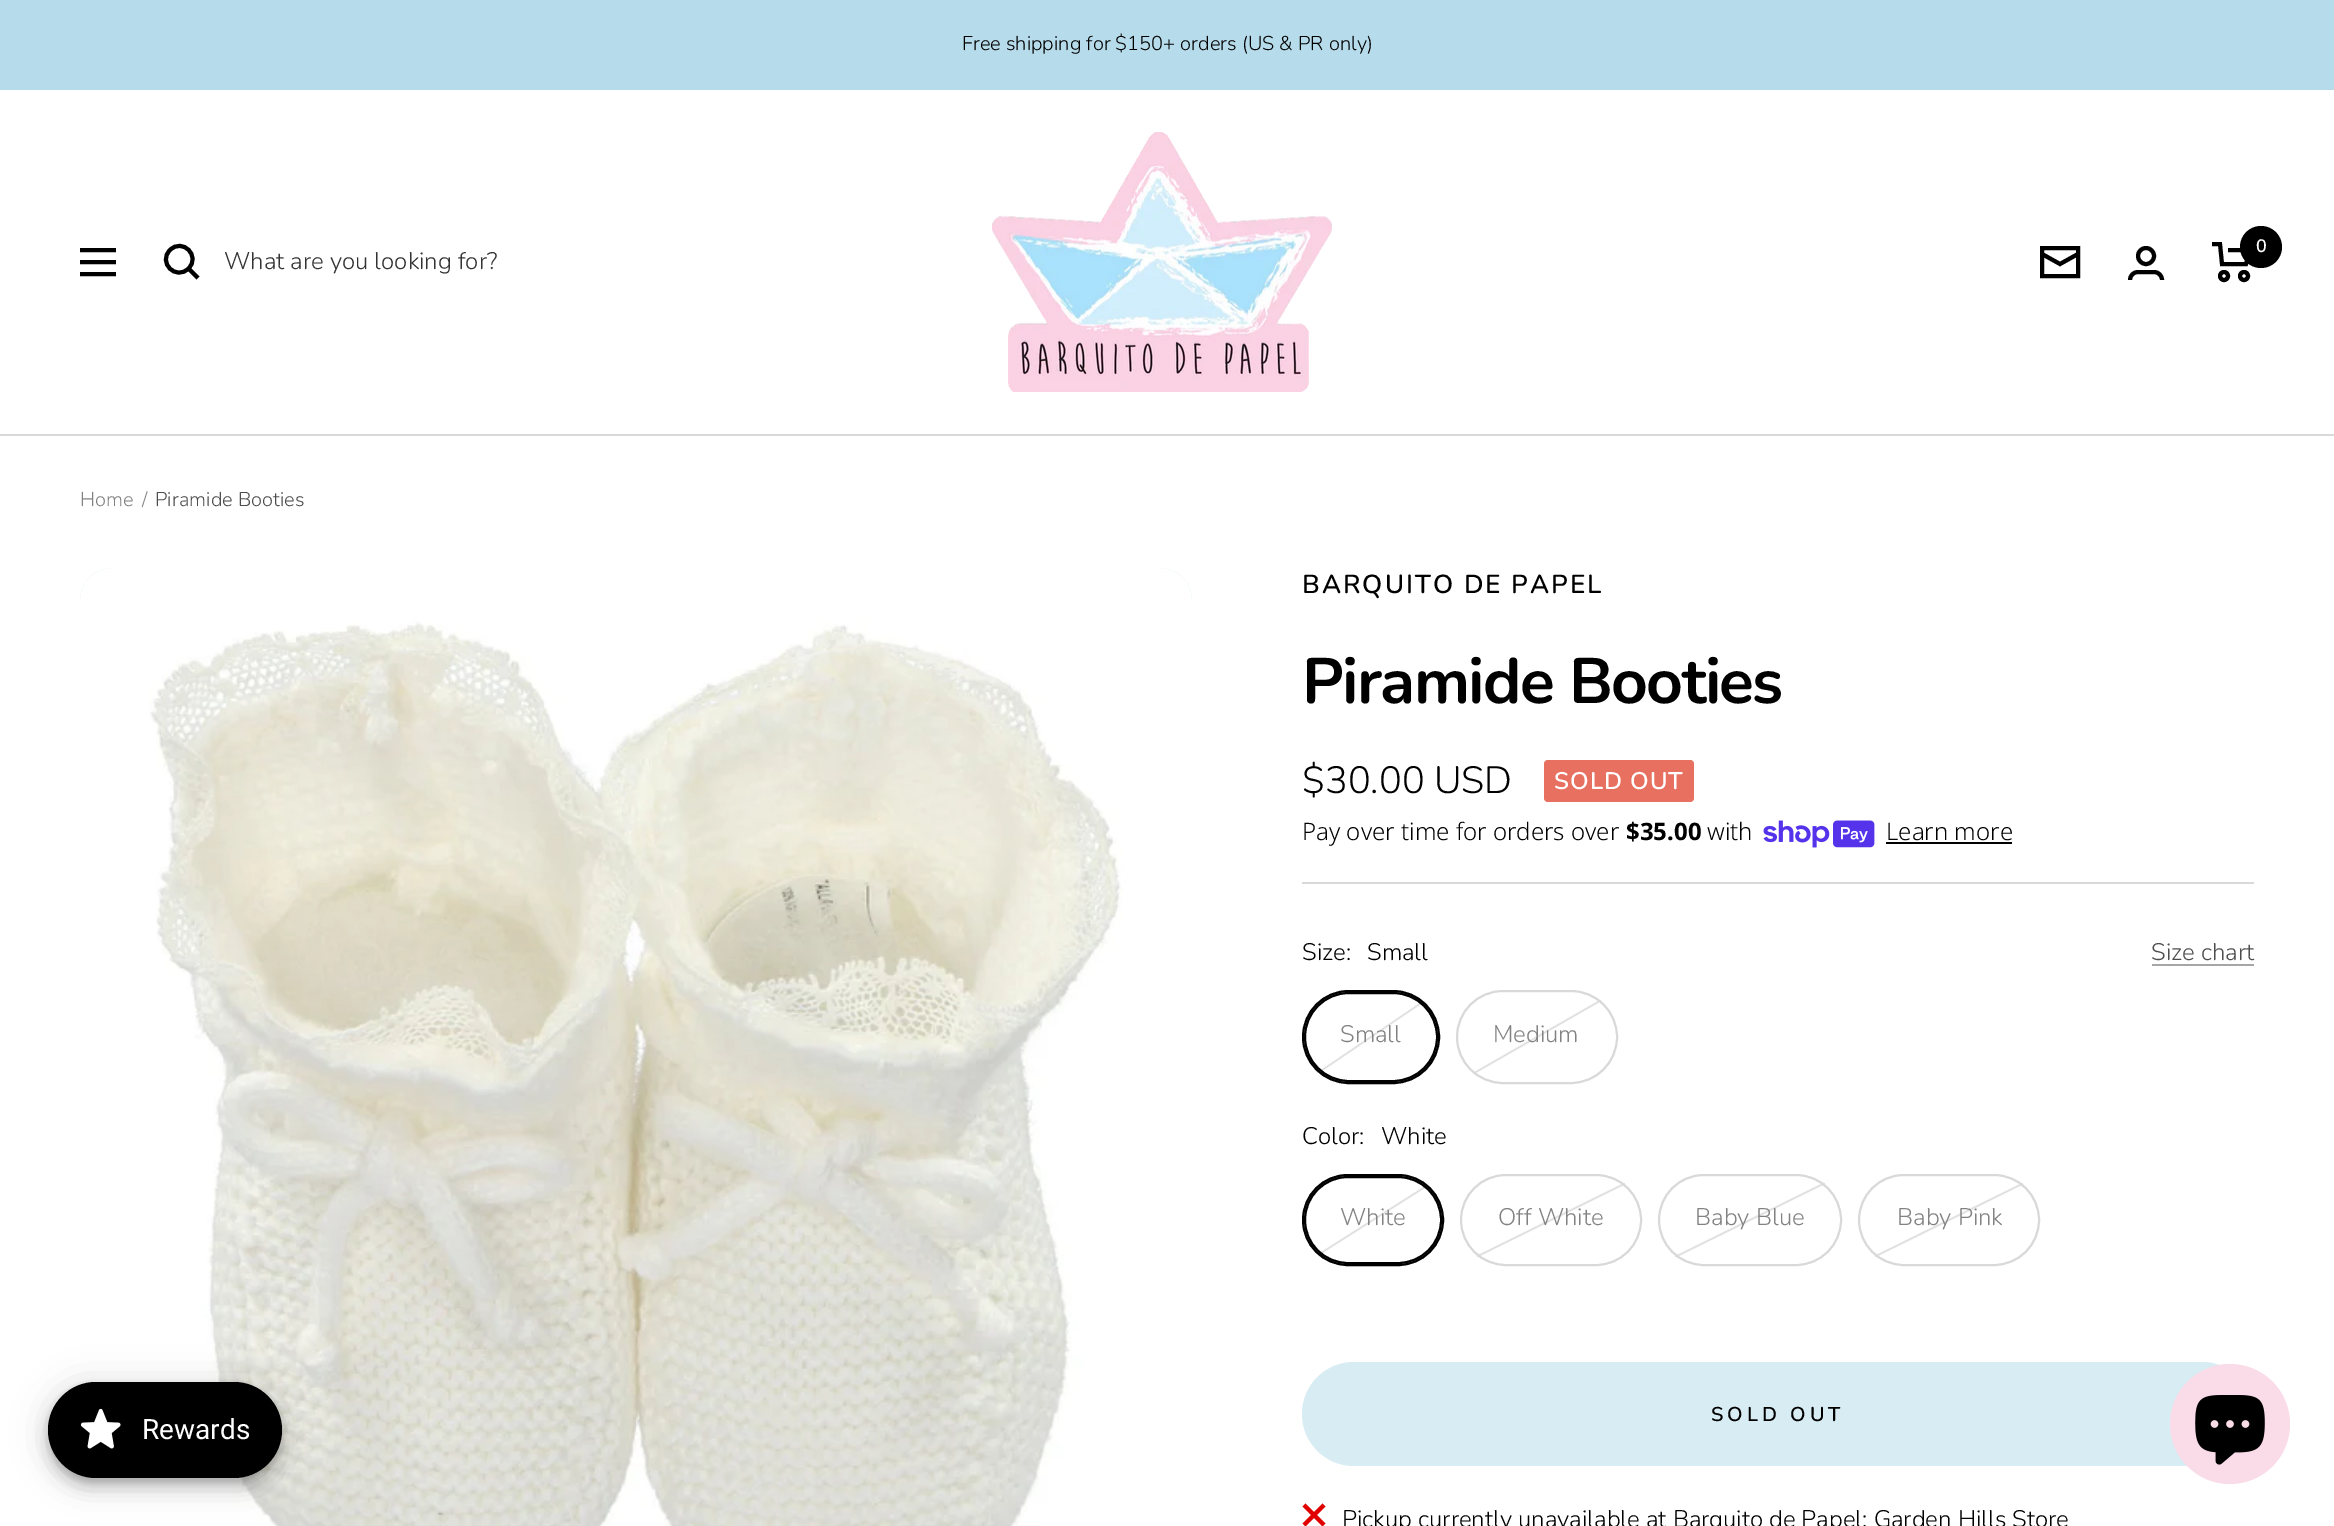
%!PS-Adobe-3.0
%%BoundingBox: 0 0 2334 1526
%%LanguageLevel: 3
%%Pages: 1
%%EndComments
%%BeginProlog
/setink { dup -16 bitshift 255 div exch dup -8 bitshift 255 and 255 div exch 255 and 255 div setrgbcolor } def
/usefont { [ exch dup neg 0 0 3 -1 roll 0 0 ] selectfont } def
/setalpha { dup .setfillconstantalpha .setstrokeconstantalpha } def
/disc { newpath 0 360 arc closepath } def
/rrect { 5 dict begin { /r /h /w /y /x } { exch def } forall
  x r add y moveto x w add y 2 copy h add r arct x w add y h add x 1 index r arct
  x y h add x y r arct x y 2 copy exch w add exch r arct closepath end } def
/softshadow { 12 dict begin { /a /b /q /h /w /y /x } { exch def } forall gsave /was 0 def
  9 -2 -9 { dup b mul 4 div /e exch def 1 sub .425 mul 2.718 exch exp 1 add a .99 .min exch div /now exch def
    1 1 now sub 1 was sub div sub setalpha /was now def
    w h .min e 2 mul add 0 gt { x e sub y e sub w e 2 mul add h e 2 mul add
      q e add b .6 mul add w h .min 2 div e add .min 0 .max rrect fill } if } for grestore end } def
/drawimage { 5 dict begin { /h /w /y /x /name } { exch def } forall
  gsave x y translate w h scale
  w h 8 [w 0 0 h 0 0] name (r) file false 3 colorimage grestore end } def
%%EndProlog
%%BeginSetup
<< /PageSize [2334 1526] /PageUsesTransparency true >> setpagedevice
%%EndSetup
%%Page: 1 1
0 .pushpdf14devicefilter
0 1526 translate 1 -1 scale
4 setmiterlimit
16#FFFFFF setink
0 0 2334 1526 rectfill
16#B6DBEA setink
0 0 2334 90 rectfill
/Nunito-Light 20 usefont
16#000000 setink
962 50 moveto (Free shipping for $150+ orders \(US & PR only\)) show
16#D9D9D9 setink
0 434 2334 2 rectfill
(img1.raw) 992 132 340 260 drawimage
16#000000 setink
4 setlinewidth
2078 254 moveto 2060 264 lineto 2042 254 lineto 2042 248 moveto 2078 248 lineto 2078 276 lineto 2042 276 lineto closepath stroke
2146 256 8 disc stroke
2130 280 moveto 2130 275.5 2133.5 272 2138 272 curveto 2154 272 lineto 2158.5 272 2162 275.5 2162 280 curveto stroke
2212 244 moveto 2220 244 lineto 2222 264 lineto 2246 264 lineto 2250 250 lineto 2228 250 lineto stroke
2224 276 4 disc stroke
2244 276 4 disc stroke
2261 247 21 disc fill
/Nunito-SemiBold 18 usefont
16#FFFFFF setink
2256 252 moveto (0) show
16#000000 setink
80 250 moveto 116 250 lineto 80 274 moveto 116 274 lineto closepath 80 262 moveto 116 262 lineto closepath stroke
188.5 268.5 moveto 201 256 182.5 237.5 170 250 curveto 157.5 262.5 176 281 188.5 268.5 curveto closepath 188.5 268.5 moveto 198 278 lineto stroke
/Nunito-Light 24 usefont
16#333333 setink
224 269 moveto (What are you looking for?) show
/Nunito-Light 20 usefont
16#828282 setink
80 506 moveto (Home) show
142 506 moveto (/) show
16#4D4D4D setink
155 506 moveto (Piramide Booties) show
16#D8ECF3 setink
80 568 1112 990 32 rrect fill
(img2.raw) 80 568 1112 958 drawimage
16#D9D9D9 setink
1302 882 952 2 rectfill
/Nunito-SemiBold 26 usefont
16#000000 setink
1302 593 moveto 2 0 (BARQUITO DE PAPEL) ashow
/Nunito-Bold 64 usefont
1302 703 moveto -1.6 0 (Piramide Booties) ashow
/Nunito-Light 38 usefont
1302 793 moveto ($30.00 USD) show
16#E87060 setink
1544 760 150 42 4 rrect fill
/Nunito-SemiBold 24 usefont
16#FFFFFF setink
1554 789 moveto 1 0 (SOLD OUT) ashow
/NotoSans-Light 24 usefont
16#000000 setink
1302 840 moveto (Pay over time for orders over) show
/NotoSans-Bold 24 usefont
1626 840 moveto ($35.00) show
/NotoSans-Light 24 usefont
1707 840 moveto (with) show
(img3.raw) 1763 820 112 28 drawimage
1886 840 moveto (Learn more) show
1886 842 126 2 rectfill
/Nunito-Light 24 usefont
1302 960 moveto (Size:) show
1367 960 moveto (Small) show
16#4D4D4D setink
2151 960 moveto (Size chart) show
16#A6A6A6 setink
2152 964 102 2 rectfill
gsave
1302 990 138 94 47 rrect clip newpath
gsave 1304 992 moveto 1438 992 lineto 1438 1082 lineto 1304 1082 lineto closepath clip newpath
<< /ShadingType 2 /ColorSpace /DeviceRGB /Coords [1329 975 1413 1099] /Extend [true true] /Function << /FunctionType 3 /Domain [0 1] /Functions [<< /FunctionType 2 /Domain [0 1] /C0 [1 1 1] /C1 [1 1 1] /N 1 >> << /FunctionType 2 /Domain [0 1] /C0 [1 1 1] /C1 [0.851 0.851 0.851] /N 1 >> << /FunctionType 2 /Domain [0 1] /C0 [0.851 0.851 0.851] /C1 [1 1 1] /N 1 >> << /FunctionType 2 /Domain [0 1] /C0 [1 1 1] /C1 [1 1 1] /N 1 >>] /Bounds [0.49 0.5 0.51] /Encode [0 1 0 1 0 1 0 1] >> >> shfill grestore
grestore
16#D9D9D9 setink
2 setlinewidth
1303 991 136 92 46 rrect stroke
16#000000 setink
1303 991 136 92 46 rrect stroke
1305 993 132 88 44 rrect stroke
16#828282 setink
1340 1042 moveto (Small) show
gsave
1456 990 162 94 47 rrect clip newpath
gsave 1458 992 moveto 1616 992 lineto 1616 1082 lineto 1458 1082 lineto closepath clip newpath
<< /ShadingType 2 /ColorSpace /DeviceRGB /Coords [1498 969 1576 1105] /Extend [true true] /Function << /FunctionType 3 /Domain [0 1] /Functions [<< /FunctionType 2 /Domain [0 1] /C0 [1 1 1] /C1 [1 1 1] /N 1 >> << /FunctionType 2 /Domain [0 1] /C0 [1 1 1] /C1 [0.851 0.851 0.851] /N 1 >> << /FunctionType 2 /Domain [0 1] /C0 [0.851 0.851 0.851] /C1 [1 1 1] /N 1 >> << /FunctionType 2 /Domain [0 1] /C0 [1 1 1] /C1 [1 1 1] /N 1 >>] /Bounds [0.49 0.5 0.51] /Encode [0 1 0 1 0 1 0 1] >> >> shfill grestore
grestore
16#D9D9D9 setink
1457 991 160 92 46 rrect stroke
16#828282 setink
1493 1042 moveto (Medium) show
16#000000 setink
1302 1144 moveto (Color:) show
1381 1144 moveto (White) show
gsave
1302 1174 142 92 46 rrect clip newpath
gsave 1304 1176 moveto 1442 1176 lineto 1442 1264 lineto 1304 1264 lineto closepath clip newpath
<< /ShadingType 2 /ColorSpace /DeviceRGB /Coords [1333 1157 1413 1283] /Extend [true true] /Function << /FunctionType 3 /Domain [0 1] /Functions [<< /FunctionType 2 /Domain [0 1] /C0 [1 1 1] /C1 [1 1 1] /N 1 >> << /FunctionType 2 /Domain [0 1] /C0 [1 1 1] /C1 [0.851 0.851 0.851] /N 1 >> << /FunctionType 2 /Domain [0 1] /C0 [0.851 0.851 0.851] /C1 [1 1 1] /N 1 >> << /FunctionType 2 /Domain [0 1] /C0 [1 1 1] /C1 [1 1 1] /N 1 >>] /Bounds [0.49 0.5 0.51] /Encode [0 1 0 1 0 1 0 1] >> >> shfill grestore
grestore
16#D9D9D9 setink
1303 1175 140 90 45 rrect stroke
16#000000 setink
1303 1175 140 90 45 rrect stroke
1305 1177 136 86 43 rrect stroke
16#828282 setink
1340 1225 moveto (White) show
gsave
1460 1174 182 92 46 rrect clip newpath
gsave 1462 1176 moveto 1640 1176 lineto 1640 1264 lineto 1462 1264 lineto closepath clip newpath
<< /ShadingType 2 /ColorSpace /DeviceRGB /Coords [1516 1149 1586 1291] /Extend [true true] /Function << /FunctionType 3 /Domain [0 1] /Functions [<< /FunctionType 2 /Domain [0 1] /C0 [1 1 1] /C1 [1 1 1] /N 1 >> << /FunctionType 2 /Domain [0 1] /C0 [1 1 1] /C1 [0.851 0.851 0.851] /N 1 >> << /FunctionType 2 /Domain [0 1] /C0 [0.851 0.851 0.851] /C1 [1 1 1] /N 1 >> << /FunctionType 2 /Domain [0 1] /C0 [1 1 1] /C1 [1 1 1] /N 1 >>] /Bounds [0.49 0.5 0.51] /Encode [0 1 0 1 0 1 0 1] >> >> shfill grestore
grestore
16#D9D9D9 setink
1461 1175 180 90 45 rrect stroke
16#828282 setink
1498 1225 moveto (Off White) show
gsave
1658 1174 184 92 46 rrect clip newpath
gsave 1660 1176 moveto 1840 1176 lineto 1840 1264 lineto 1660 1264 lineto closepath clip newpath
<< /ShadingType 2 /ColorSpace /DeviceRGB /Coords [1715 1149 1785 1291] /Extend [true true] /Function << /FunctionType 3 /Domain [0 1] /Functions [<< /FunctionType 2 /Domain [0 1] /C0 [1 1 1] /C1 [1 1 1] /N 1 >> << /FunctionType 2 /Domain [0 1] /C0 [1 1 1] /C1 [0.851 0.851 0.851] /N 1 >> << /FunctionType 2 /Domain [0 1] /C0 [0.851 0.851 0.851] /C1 [1 1 1] /N 1 >> << /FunctionType 2 /Domain [0 1] /C0 [1 1 1] /C1 [1 1 1] /N 1 >>] /Bounds [0.49 0.5 0.51] /Encode [0 1 0 1 0 1 0 1] >> >> shfill grestore
grestore
16#D9D9D9 setink
1659 1175 182 90 45 rrect stroke
16#828282 setink
1695 1225 moveto (Baby Blue) show
gsave
1858 1174 182 92 46 rrect clip newpath
gsave 1860 1176 moveto 2038 1176 lineto 2038 1264 lineto 1860 1264 lineto closepath clip newpath
<< /ShadingType 2 /ColorSpace /DeviceRGB /Coords [1914 1149 1984 1291] /Extend [true true] /Function << /FunctionType 3 /Domain [0 1] /Functions [<< /FunctionType 2 /Domain [0 1] /C0 [1 1 1] /C1 [1 1 1] /N 1 >> << /FunctionType 2 /Domain [0 1] /C0 [1 1 1] /C1 [0.851 0.851 0.851] /N 1 >> << /FunctionType 2 /Domain [0 1] /C0 [0.851 0.851 0.851] /C1 [1 1 1] /N 1 >> << /FunctionType 2 /Domain [0 1] /C0 [1 1 1] /C1 [1 1 1] /N 1 >>] /Bounds [0.49 0.5 0.51] /Encode [0 1 0 1 0 1 0 1] >> >> shfill grestore
grestore
16#D9D9D9 setink
1859 1175 180 90 45 rrect stroke
16#828282 setink
1897 1225 moveto (Baby Pink) show
16#D8ECF3 setink
1302 1362 952 104 52 rrect fill
/Nunito-SemiBold 20 usefont
16#000000 setink
1711 1421 moveto 4 0 (SOLD OUT) ashow
16#E00000 setink
4 setlinewidth
1304 1505 moveto 1324 1525 lineto 1304 1525 moveto 1324 1505 lineto stroke
/Nunito-Light 24 usefont
16#000000 setink
1342 1527 moveto (Pickup currently unavailable at Barquito de Papel: Garden Hills Store) show
48 1384 234 96 48 18 0.12 softshadow
48 1394 234 96 48 10 0.14 softshadow
50 1390 230 92 46 5 0.2 softshadow
48 1382 234 96 48 rrect fill
(img4.raw) 80 1408 41 41 drawimage
/Roboto-Regular 28 usefont
16#FFFFFF setink
142 1439 moveto (Rewards) show
16#F9DCE7 setink
2230 1424 60 disc fill
(img5.raw) 2195 1395 70 70 drawimage
.poppdf14devicefilter showpage
%%EOF
